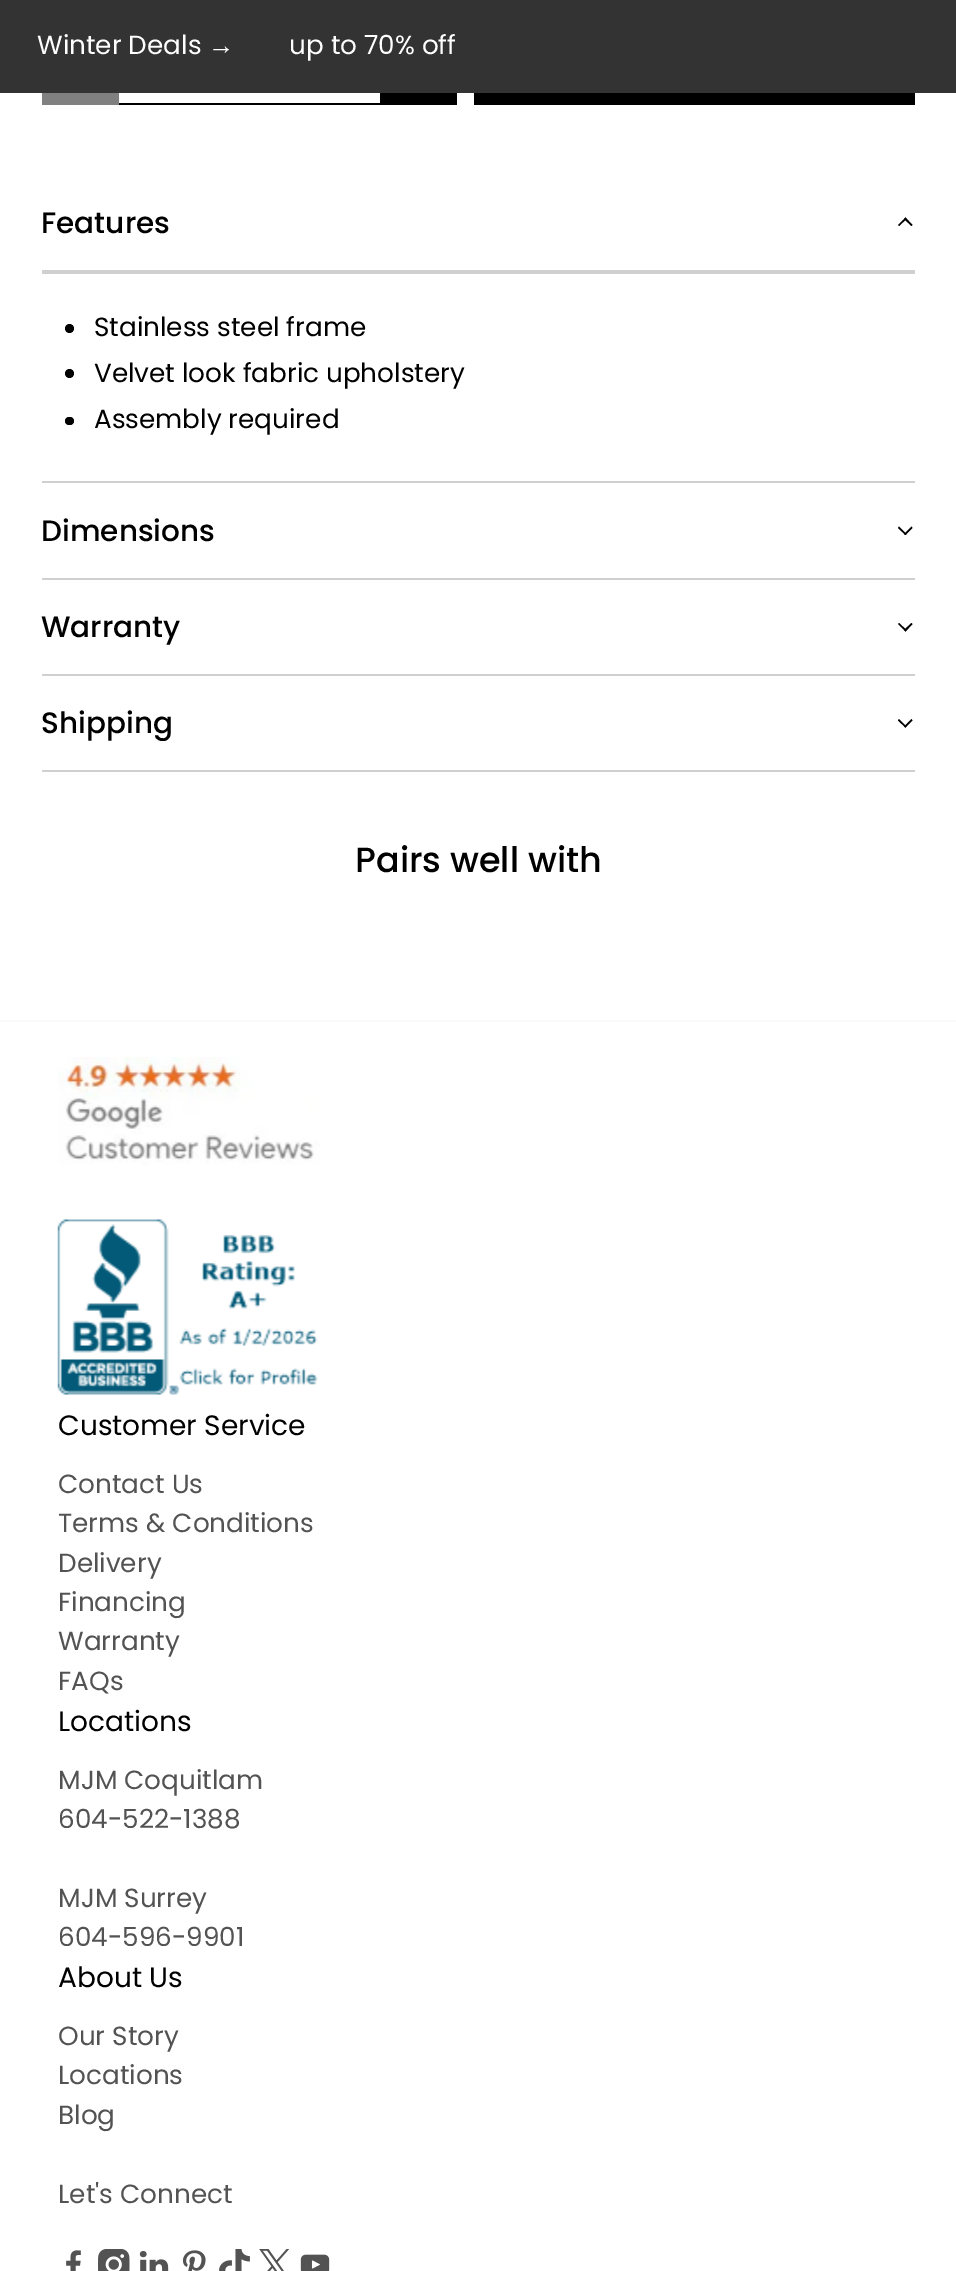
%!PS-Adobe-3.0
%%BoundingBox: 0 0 956 2271
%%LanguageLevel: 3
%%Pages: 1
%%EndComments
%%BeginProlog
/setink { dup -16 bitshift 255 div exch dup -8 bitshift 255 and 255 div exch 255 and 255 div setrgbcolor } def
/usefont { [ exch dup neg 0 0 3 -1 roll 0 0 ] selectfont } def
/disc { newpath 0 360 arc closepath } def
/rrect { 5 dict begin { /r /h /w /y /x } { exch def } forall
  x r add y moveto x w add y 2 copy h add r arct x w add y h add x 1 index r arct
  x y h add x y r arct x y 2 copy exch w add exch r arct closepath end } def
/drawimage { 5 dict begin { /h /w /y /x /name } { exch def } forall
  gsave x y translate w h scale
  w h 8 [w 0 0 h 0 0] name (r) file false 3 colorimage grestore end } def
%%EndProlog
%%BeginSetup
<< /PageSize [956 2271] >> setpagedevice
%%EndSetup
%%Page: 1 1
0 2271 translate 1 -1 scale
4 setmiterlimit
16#FFFFFF setink
0 0 956 2271 rectfill
16#333333 setink
0 0 956 93 rectfill
/Poppins-Regular 26.25 usefont
16#FFFFFF setink
37 54 moveto (Winter Deals) show
/LiberationSans-Regular 26.25 usefont
208 54 moveto (→) show
/Poppins-Regular 26.25 usefont
289 54 moveto (up to 70% off) show
[
    [42 93 77 12 16#808080]
    [119 103 261 2 16#000000]
    [380 93 77 12 16#000000]
    [474 93 441 12 16#000000]
    [42 270 873 4 16#D0D0D0]
] { aload pop setink rectfill } forall
/Poppins-Medium 29.5 usefont
16#000000 setink
41 233 moveto (Features) show
899 226 moveto 898 225 lineto 905.5 217.5 lineto 906.5 219 lineto closepath fill
911.5 226 moveto 904 219 lineto 905.5 217.5 lineto 912.5 225 lineto closepath fill
16#D0D0D0 setink
42 481 873 2 rectfill
16#000000 setink
69.5 328.5 4.5 disc fill
/Poppins-Regular 26.25 usefont
94 336 moveto (Stainless steel frame) show
69.5 373.5 4.5 disc fill
94 382 moveto (Velvet look fabric upholstery) show
65 417 9 8 4 rrect fill
94 428 moveto (Assembly required) show
16#D0D0D0 setink
42 578 873 2 rectfill
/Poppins-Medium 29.5 usefont
16#000000 setink
41 541 moveto (Dimensions) show
911.5 526.5 moveto 912.5 528 lineto 905.5 535 lineto 904 534 lineto closepath fill
899 526.5 moveto 906.5 534 lineto 905.5 535 lineto 898 528 lineto closepath fill
16#D0D0D0 setink
42 674 873 2 rectfill
16#000000 setink
41 637 moveto (Warranty) show
911.5 623 moveto 912.5 624 lineto 905.5 631.5 lineto 904 630 lineto closepath fill
899 623 moveto 906.5 630 lineto 905.5 631.5 lineto 898 624 lineto closepath fill
16#D0D0D0 setink
42 770 873 2 rectfill
16#000000 setink
41 733 moveto (Shipping) show
911.5 719 moveto 912.5 720.5 lineto 905.5 727.5 lineto 904 726.5 lineto closepath fill
899 719 moveto 906.5 726.5 lineto 905.5 727.5 lineto 898 720.5 lineto closepath fill
/Poppins-Medium 35 usefont
355 872 moveto (Pairs well with) show
16#FAFAFA setink
0 1020 956 2 rectfill
(img1.raw) 58 1057 262 108 drawimage
(img2.raw) 57 1219 261 176 drawimage
/Poppins-Regular 28 usefont
16#000000 setink
58 1435 moveto (Customer Service) show
/Poppins-Regular 26.25 usefont
16#535353 setink
[
    [(Contact Us) 58 1493]
    [(Terms & Conditions) 58 1532]
    [(Delivery) 58 1572]
    [(Financing) 58 1611]
    [(Warranty) 58 1650]
    [(FAQs) 58 1690]
] { aload pop moveto show } forall
/Poppins-Regular 28 usefont
16#000000 setink
58 1731 moveto (Locations) show
/Poppins-Regular 26.25 usefont
16#535353 setink
[
    [(MJM Coquitlam) 58 1789]
    [(604-522-1388) 58 1828]
    [(MJM Surrey) 58 1907]
    [(604-596-9901) 58 1946]
] { aload pop moveto show } forall
/Poppins-Regular 28 usefont
16#000000 setink
58 1987 moveto (About Us) show
/Poppins-Regular 26.25 usefont
16#535353 setink
[
    [(Our Story) 58 2045]
    [(Locations) 58 2084]
    [(Blog) 58 2124]
    [(Let's Connect) 58 2203]
] { aload pop moveto show } forall
(img3.raw) 66 2250 15 21 drawimage
(img4.raw) 98 2249 32 22 drawimage
(img5.raw) 139 2251 30 20 drawimage
(img6.raw) 182 2250 24 21 drawimage
(img7.raw) 219 2249 31 22 drawimage
(img8.raw) 259 2249 31 22 drawimage
(img9.raw) 300 2254 30 17 drawimage
showpage
%%EOF
